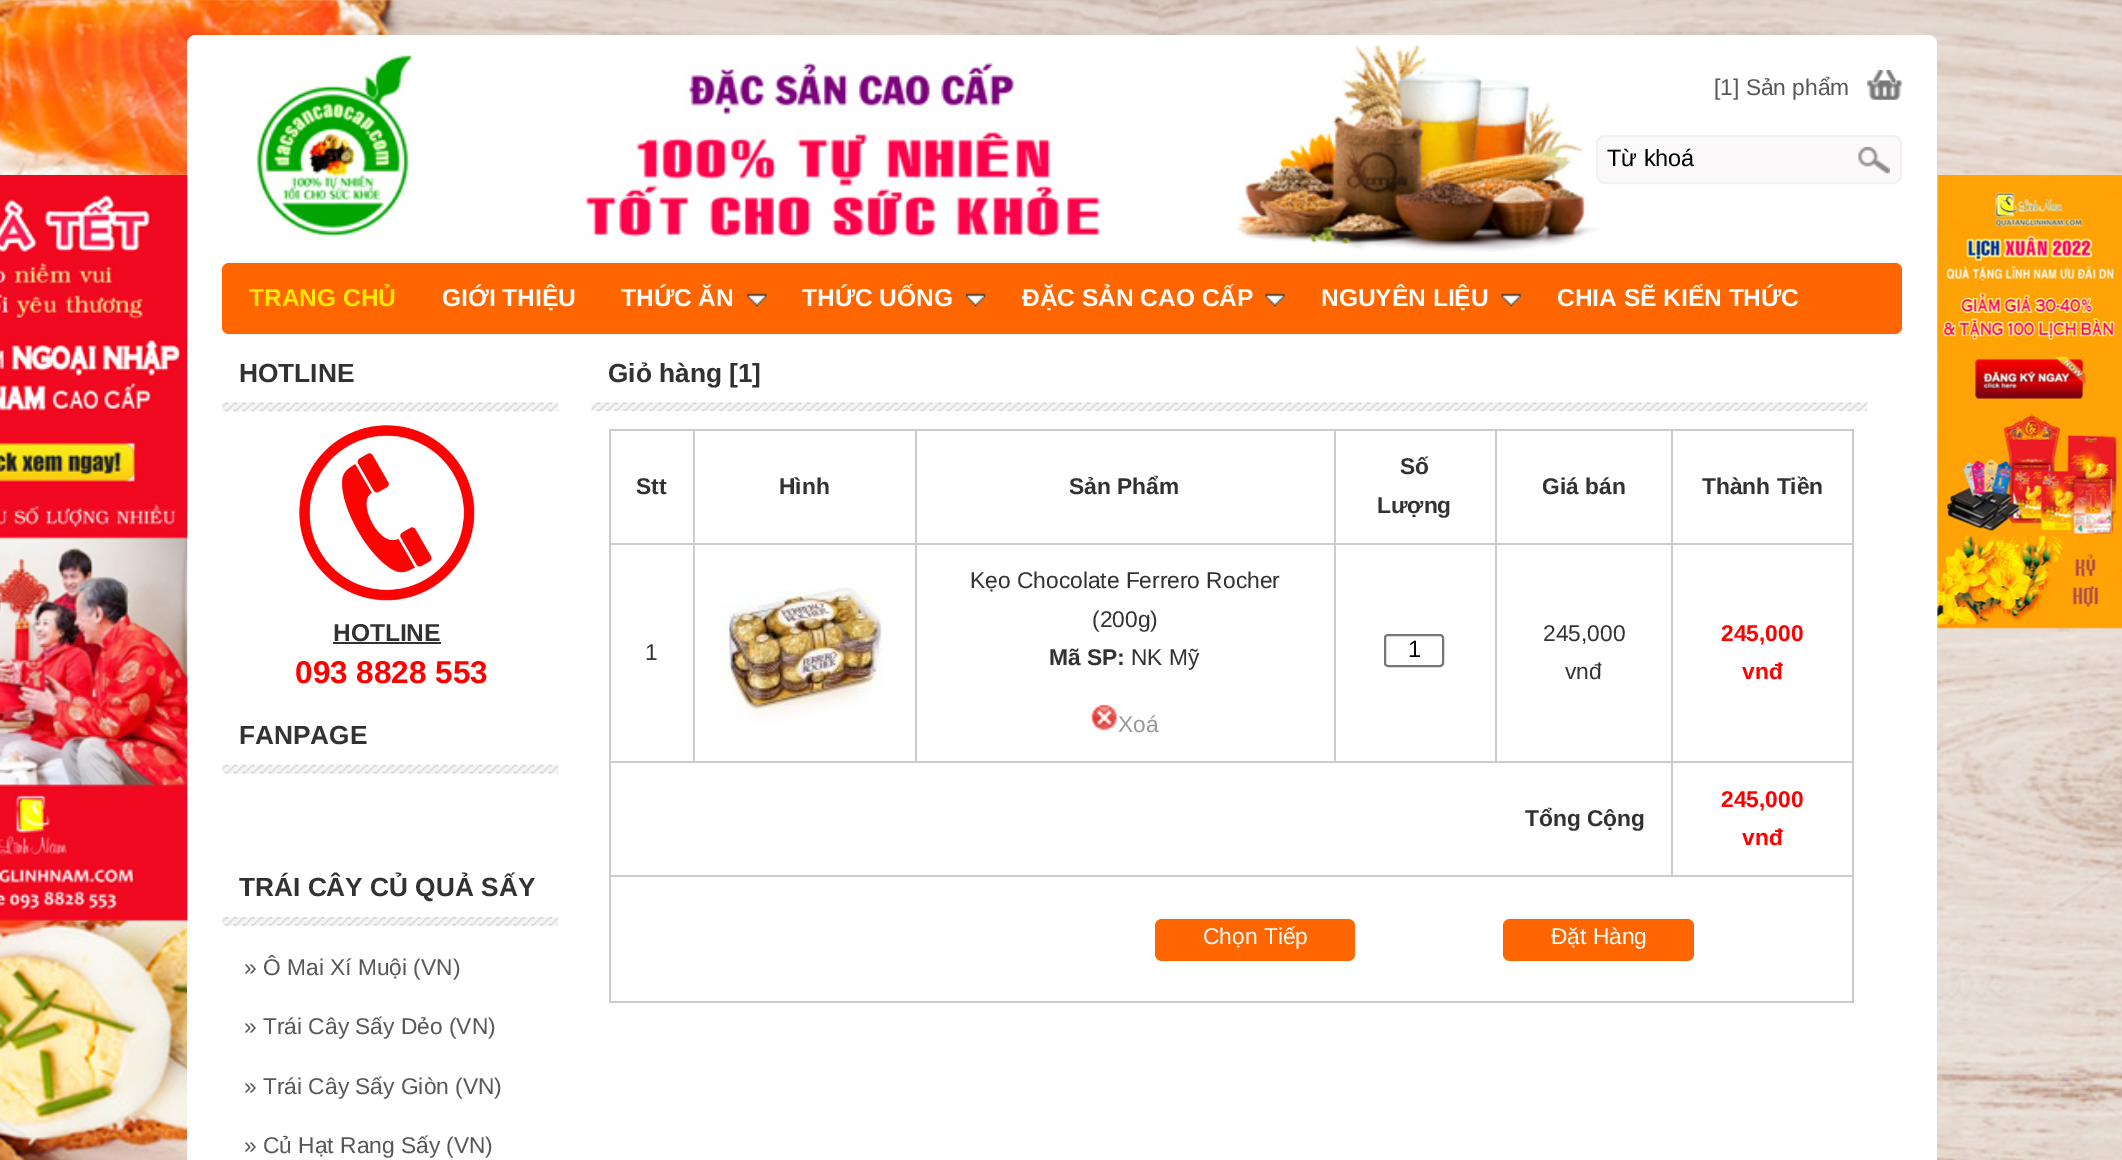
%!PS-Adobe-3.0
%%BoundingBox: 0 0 2122 1160
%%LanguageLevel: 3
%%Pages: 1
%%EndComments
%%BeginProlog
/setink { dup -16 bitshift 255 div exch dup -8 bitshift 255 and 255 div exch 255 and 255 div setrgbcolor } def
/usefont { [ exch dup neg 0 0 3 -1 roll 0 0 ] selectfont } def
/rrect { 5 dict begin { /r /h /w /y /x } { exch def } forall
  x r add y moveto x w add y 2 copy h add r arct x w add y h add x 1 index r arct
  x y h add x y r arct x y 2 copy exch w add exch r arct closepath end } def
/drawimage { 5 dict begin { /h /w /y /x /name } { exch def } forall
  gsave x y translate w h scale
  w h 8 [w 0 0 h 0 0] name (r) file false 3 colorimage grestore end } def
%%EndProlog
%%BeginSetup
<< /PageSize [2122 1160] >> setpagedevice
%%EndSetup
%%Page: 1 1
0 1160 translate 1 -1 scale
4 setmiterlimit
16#FFFFFF setink
0 0 2122 1160 rectfill
(img1.raw) 0 0 2122 1160 drawimage
187 35 1750 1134 9 rrect fill
(img2.raw) 0 175 188 746 drawimage
(img3.raw) 256 45 1344 207 drawimage
(img4.raw) 1867 70 36 30 drawimage
/LiberationSans-Regular 22.75 usefont
16#575757 setink
1714 95 moveto ([1] Sản phẩm) show
16#FBF9FA setink
1597 136 304 47 8 rrect gsave fill grestore
16#F1F1F1 setink
2 setlinewidth
stroke
/LiberationSans-Regular 23.5 usefont
16#000000 setink
1607 166 moveto (Từ khoá) show
(img5.raw) 1858 147 32 27 drawimage
16#FF6600 setink
222 263 1680 71 7 rrect fill
/LiberationSans-Bold 24.5 usefont
16#FFEA00 setink
249 306 moveto (TRANG CHỦ) show
16#FFFFFF setink
442 306 moveto (GIỚI THIỆU) show
621 306 moveto (THỨC ĂN) show
(img6.raw) 747 293 20 14 drawimage
802 306 moveto (THỨC UỐNG) show
(img7.raw) 966 293 20 14 drawimage
1022 306 moveto (ĐẶC SẢN CAO CẤP) show
(img8.raw) 1265 293 20 14 drawimage
1321 306 moveto (NGUYÊN LIỆU) show
(img9.raw) 1501 293 20 14 drawimage
1557 306 moveto (CHIA SẼ KIẾN THỨC) show
(img10.raw) 222 402 337 10 drawimage
/LiberationSans-Bold 26.25 usefont
16#323232 setink
239 382 moveto (HOTLINE) show
(img11.raw) 299 425 176 176 drawimage
/LiberationSans-Bold 24.5 usefont
333 641 moveto (HOTLINE) show
333 642 108 2 rectfill
/LiberationSans-Bold 31.5 usefont
16#FF0000 setink
295 683 moveto (093 8828 553) show
(img12.raw) 222 764 337 10 drawimage
/LiberationSans-Bold 26.25 usefont
16#323232 setink
239 744 moveto (FANPAGE) show
(img13.raw) 222 917 337 9 drawimage
239 896 moveto (TRÁI CÂY CỦ QUẢ SẤY) show
/LiberationSans-Regular 22.75 usefont
16#575757 setink
[
    [(» Ô Mai Xí Muội \(VN\)) 244 975]
    [(» Trái Cây Sấy Dẻo \(VN\)) 244 1034]
    [(» Trái Cây Sấy Giòn \(VN\)) 244 1094]
    [(» Củ Hạt Rang Sấy \(VN\)) 244 1153]
] { aload pop moveto show } forall
(img14.raw) 591 402 1277 10 drawimage
/LiberationSans-Bold 26.25 usefont
16#323232 setink
608 382 moveto (Giỏ hàng [1]) show
[
    [596 411 1272 1 16#FFFFFF]
    [609 429 1244 2 16#CCCCCC]
    [609 429 2 574 16#CCCCCC]
    [1852 429 2 574 16#CCCCCC]
    [1671 875 182 2 16#CCCCCC]
    [1671 761 2 116 16#CCCCCC]
    [1671 761 182 2 16#CCCCCC]
    [1671 543 2 220 16#CCCCCC]
    [1671 543 182 2 16#CCCCCC]
    [1671 429 2 115 16#CCCCCC]
    [1495 761 178 2 16#CCCCCC]
    [1495 543 2 220 16#CCCCCC]
    [1495 543 178 2 16#CCCCCC]
    [1495 429 2 115 16#CCCCCC]
    [1334 761 162 2 16#CCCCCC]
    [1334 543 2 220 16#CCCCCC]
    [1334 543 162 2 16#CCCCCC]
    [1334 429 2 115 16#CCCCCC]
    [915 761 420 2 16#CCCCCC]
    [915 543 2 220 16#CCCCCC]
    [915 543 420 2 16#CCCCCC]
    [915 429 2 115 16#CCCCCC]
    [693 761 224 2 16#CCCCCC]
    [693 543 2 220 16#CCCCCC]
    [693 543 224 2 16#CCCCCC]
    [693 429 2 115 16#CCCCCC]
    [609 543 86 2 16#CCCCCC]
] { aload pop setink rectfill } forall
/LiberationSans-Bold 22.75 usefont
16#323232 setink
[
    [(Stt) 636 494]
    [(Hình) 779 494]
    [(Sản Phẩm) 1069 494]
    [(Số) 1400 474]
    [(Lượng) 1377 513]
    [(Giá bán) 1542 494]
    [(Thành Tiền) 1702 494]
] { aload pop moveto show } forall
16#CCCCCC setink
609 761 86 2 rectfill
/LiberationSans-Regular 22.75 usefont
16#323232 setink
645 660 moveto (1) show
(img15.raw) 721 587 162 136 drawimage
970 588 moveto (Kẹo Chocolate Ferrero Rocher) show
1092 627 moveto (\(200g\)) show
/LiberationSans-Bold 22.75 usefont
1049 665 moveto (Mã SP:) show
/LiberationSans-Regular 22.75 usefont
1131 665 moveto (NK Mỹ) show
(img16.raw) 1091 704 26 27 drawimage
16#999999 setink
1118 732 moveto (Xoá) show
16#767676 setink
1385 635 58 31 3 rrect stroke
/LiberationSans-Regular 23.5 usefont
16#000000 setink
1408 657 moveto (1) show
/LiberationSans-Regular 22.75 usefont
16#323232 setink
1543 641 moveto (245,000) show
1565 679 moveto (vnđ) show
/LiberationSans-Bold 22.75 usefont
16#FF0000 setink
1721 641 moveto (245,000) show
1742 679 moveto (vnđ) show
16#CCCCCC setink
609 875 1064 2 rectfill
16#323232 setink
1525 826 moveto (Tổng Cộng) show
16#FF0000 setink
1721 807 moveto (245,000) show
1742 845 moveto (vnđ) show
16#CCCCCC setink
609 1001 1244 2 rectfill
16#FF6600 setink
1155 919 200 42 7 rrect fill
/LiberationSans-Regular 22.75 usefont
16#FFFFFF setink
1203 944 moveto (Chọn Tiếp) show
16#FF6600 setink
1503 919 191 42 7 rrect fill
16#FFFFFF setink
1551 944 moveto (Đặt Hàng) show
(img17.raw) 1937 175 185 454 drawimage
showpage
%%EOF
